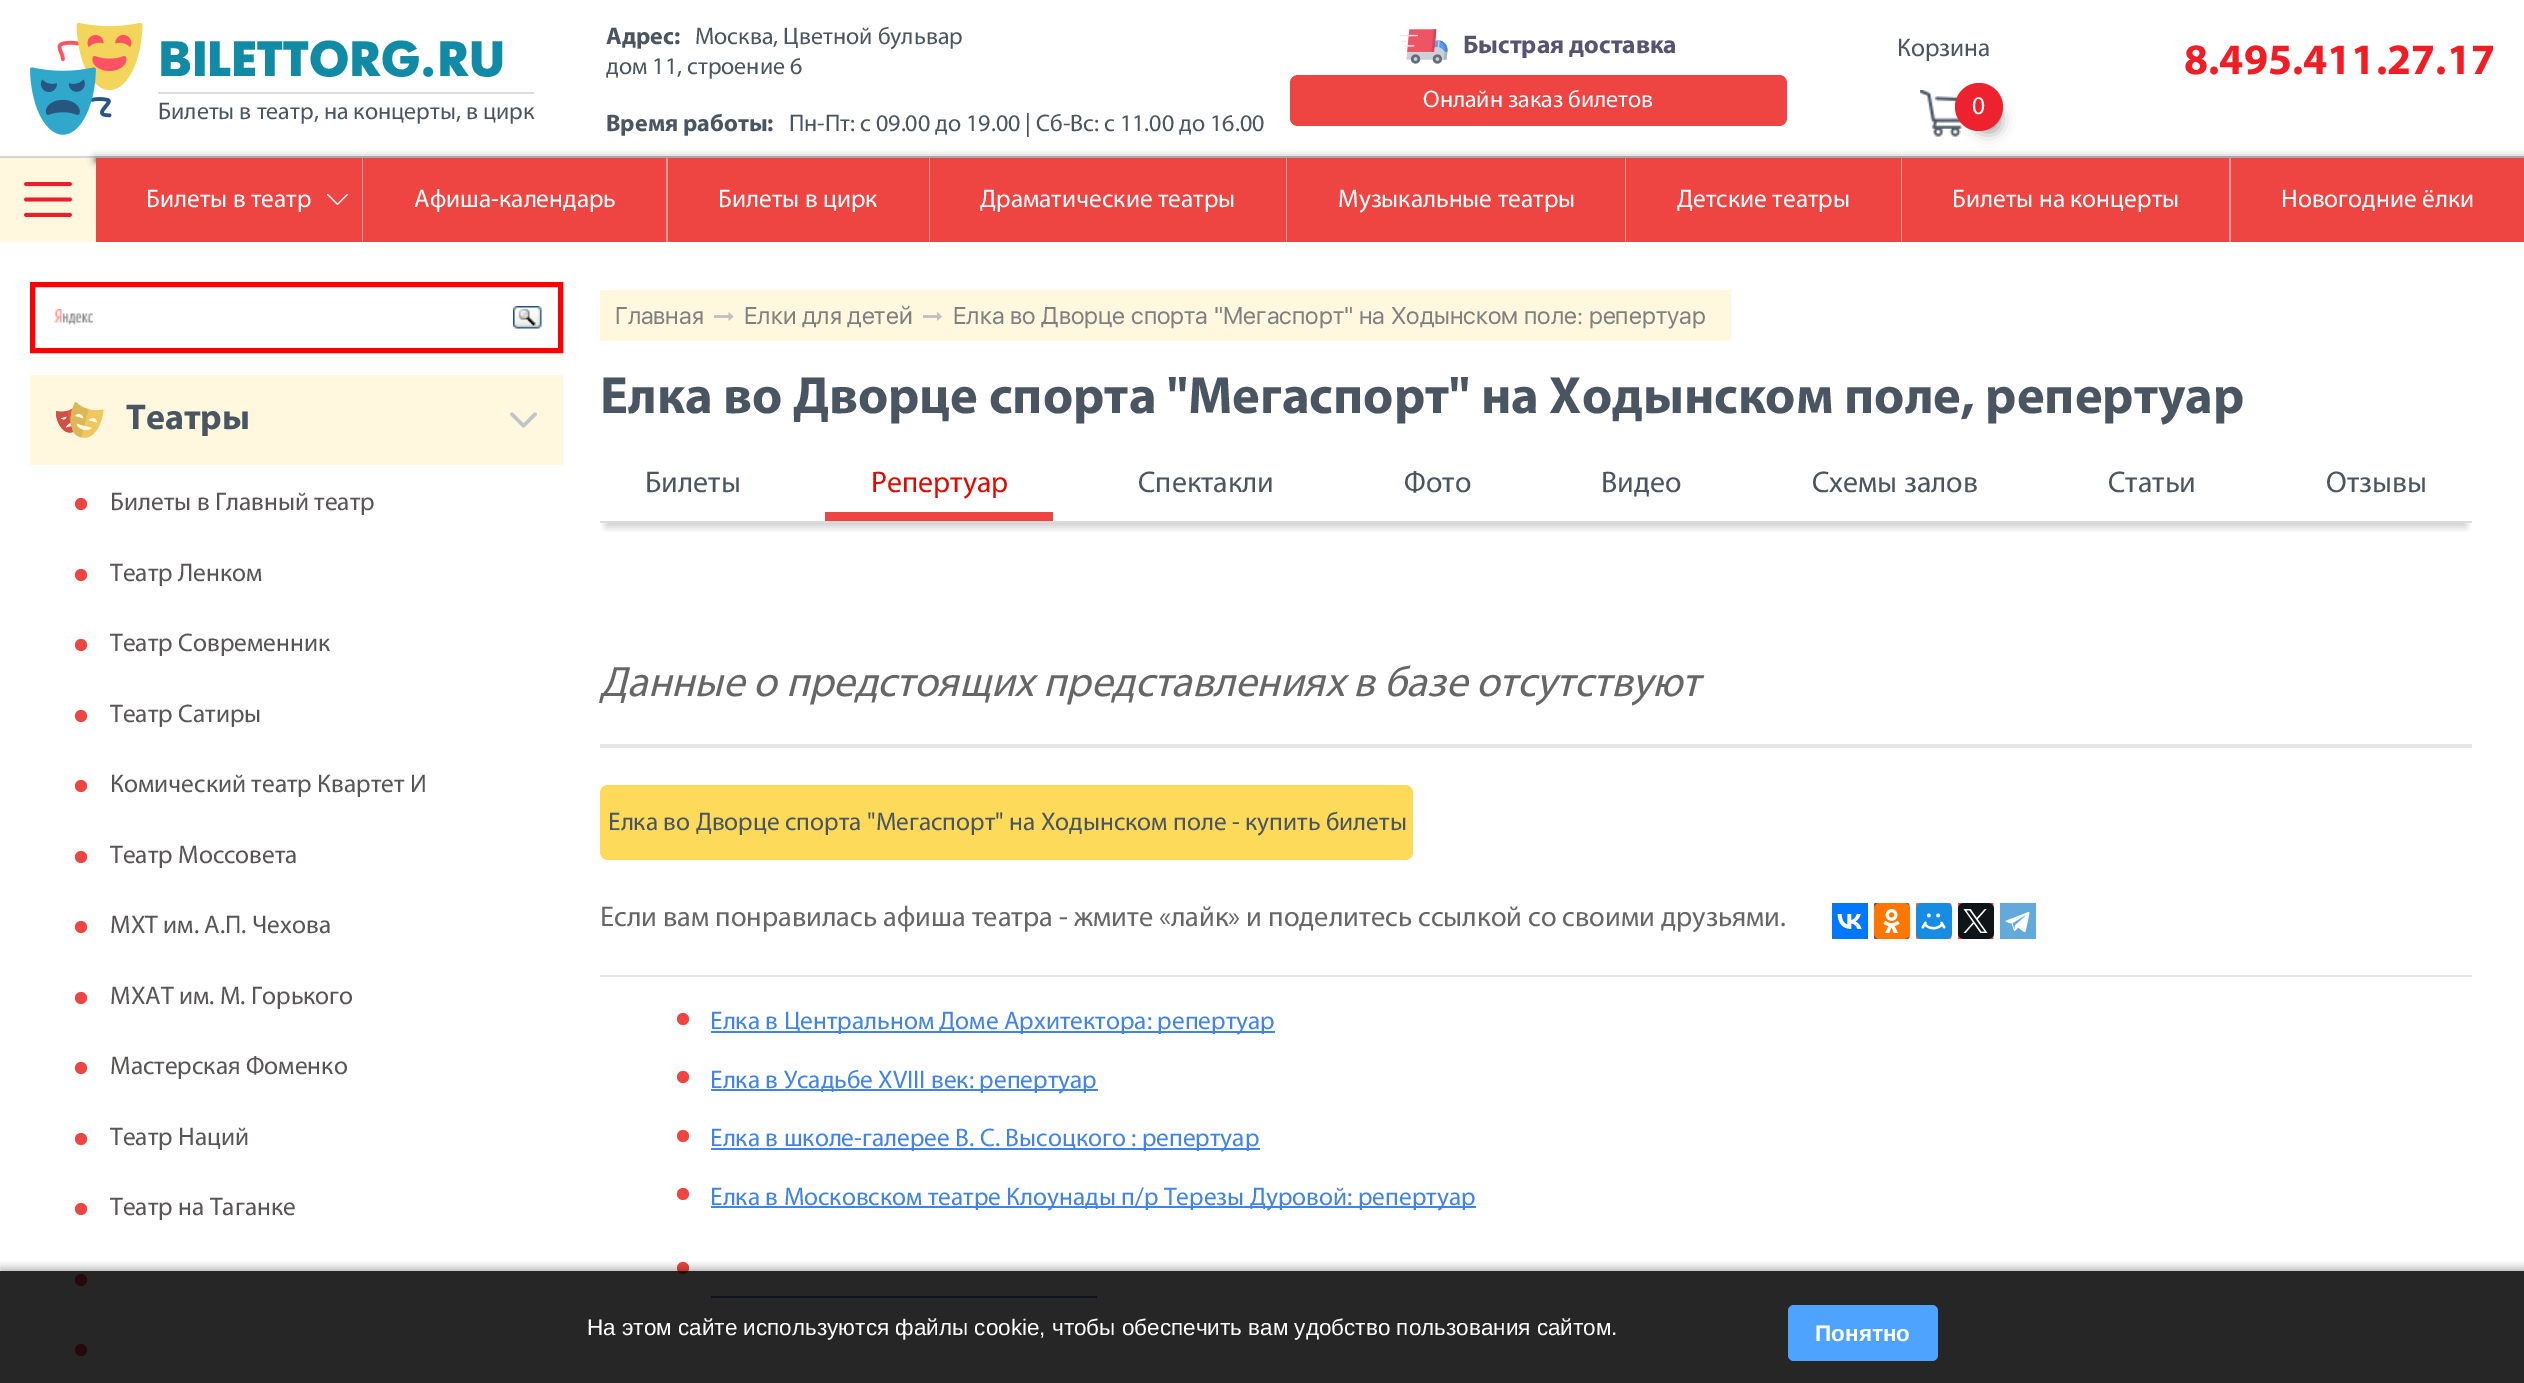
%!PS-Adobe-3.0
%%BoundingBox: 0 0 2524 1383
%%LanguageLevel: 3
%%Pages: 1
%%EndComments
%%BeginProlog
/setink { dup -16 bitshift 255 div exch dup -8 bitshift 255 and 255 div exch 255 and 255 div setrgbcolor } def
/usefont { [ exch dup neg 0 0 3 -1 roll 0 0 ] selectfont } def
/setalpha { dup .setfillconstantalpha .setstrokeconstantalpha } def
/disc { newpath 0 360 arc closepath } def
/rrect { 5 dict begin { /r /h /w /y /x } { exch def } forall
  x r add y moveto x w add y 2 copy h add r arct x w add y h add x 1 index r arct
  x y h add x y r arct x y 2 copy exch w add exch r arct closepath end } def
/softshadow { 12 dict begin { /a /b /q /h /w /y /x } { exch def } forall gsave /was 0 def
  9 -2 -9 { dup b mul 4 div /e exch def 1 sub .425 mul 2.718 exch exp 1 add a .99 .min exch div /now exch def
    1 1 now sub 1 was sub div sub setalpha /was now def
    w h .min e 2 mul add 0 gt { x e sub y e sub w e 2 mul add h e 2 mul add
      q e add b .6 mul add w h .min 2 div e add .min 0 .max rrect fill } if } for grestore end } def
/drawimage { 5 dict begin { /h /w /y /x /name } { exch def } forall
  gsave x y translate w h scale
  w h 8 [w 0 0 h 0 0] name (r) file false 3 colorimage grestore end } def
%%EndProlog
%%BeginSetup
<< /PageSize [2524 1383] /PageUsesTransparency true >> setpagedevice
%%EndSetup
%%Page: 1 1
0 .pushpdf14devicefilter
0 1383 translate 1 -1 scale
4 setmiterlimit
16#FFFFFF setink
0 0 2524 1383 rectfill
(img1.raw) 30 23 113 112 drawimage
16#DCDCDC setink
158 92 376 2 rectfill
/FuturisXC-Regular 49.5 usefont
16#108AA5 setink
158 76 moveto (BILETTORG.RU) show
/Myriad-Regular 24 usefont
16#495661 setink
158 119 moveto (Билеты в театр, на концерты, в цирк) show
/Myriad-Bold 24 usefont
606 44 moveto (Адрес:) show
/Myriad-Regular 24 usefont
695 44 moveto (Москва, Цветной бульвар) show
606 74 moveto (дом 11, строение 6) show
/Myriad-Bold 24 usefont
606 131 moveto (Время работы:) show
/Myriad-Regular 24 usefont
789 131 moveto (Пн-Пт: с 09.00 до 19.00 | Сб-Вс: с 11.00 до 16.00) show
(img2.raw) 1400 29 48 35 drawimage
/Myriad-Bold 25.5 usefont
16#555570 setink
1463 53 moveto (Быстрая доставка) show
16#EF4542 setink
1290 75 497 51 8 rrect fill
/Myriad-Regular 24 usefont
16#FFFFFF setink
1423 107 moveto (Онлайн заказ билетов) show
/Myriad-Regular 25.5 usefont
16#495661 setink
1897 56 moveto (Корзина) show
(img3.raw) 1920 90 43 47 drawimage
16#000000 setink
1976 108 24 24 12 7 0.4 softshadow
16#ED222E setink
1979 107 24 disc fill
16#FFFFFF setink
1972 114 moveto (0) show
/Myriad-Bold 43.5 usefont
16#F01D24 setink
2184 74 moveto (8.495.411.27.17) show
16#D4D4D4 setink
0 156 2524 2 rectfill
16#FFF8DF setink
0 158 96 84 rectfill
(img4.raw) 24 182 48 35 drawimage
16#000000 setink
96 159 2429 2 0 4 0.7 softshadow
16#EF4542 setink
96 158 266 84 rectfill
16#EE989B setink
362 158 1 84 rectfill
/Myriad-Regular 25.5 usefont
16#FFFFFF setink
146 207 moveto (Билеты в театр) show
(img5.raw) 327 193 21 13 drawimage
16#EF4542 setink
363 158 303 84 rectfill
16#EE989B setink
666 158 2 84 rectfill
16#FFFFFF setink
414 207 moveto (Афиша-календарь) show
16#EF4542 setink
668 158 261 84 rectfill
16#EE989B setink
929 158 1 84 rectfill
16#FFFFFF setink
718 207 moveto (Билеты в цирк) show
16#EF4542 setink
930 158 356 84 rectfill
16#EE989B setink
1286 158 1 84 rectfill
16#FFFFFF setink
980 207 moveto (Драматические театры) show
16#EF4542 setink
1287 158 338 84 rectfill
16#EE989B setink
1625 158 1 84 rectfill
16#FFFFFF setink
1338 207 moveto (Музыкальные театры) show
16#EF4542 setink
1626 158 275 84 rectfill
16#EE989B setink
1901 158 1 84 rectfill
16#FFFFFF setink
1677 207 moveto (Детские театры) show
16#EF4542 setink
1902 158 327 84 rectfill
16#EE989B setink
2229 158 2 84 rectfill
16#FFFFFF setink
1952 207 moveto (Билеты на концерты) show
16#EF4542 setink
2231 158 293 84 rectfill
16#FFFFFF setink
2281 207 moveto (Новогодние ёлки) show
16#FF0000 setink
5 setlinewidth
32.5 284.5 528 66 rectstroke
(img6.raw) 54 309 39 17 drawimage
(img7.raw) 513 306 29 23 drawimage
16#FFF8DF setink
30 375 533 90 rectfill
(img8.raw) 56 402 48 36 drawimage
/Myriad-Bold 36 usefont
16#495661 setink
126 429 moveto (Театры) show
(img9.raw) 510 412 27 16 drawimage
16#EF4542 setink
81 504 6 disc fill
/Myriad-Regular 25.5 usefont
16#5A5555 setink
110 510 moveto (Билеты в Главный театр) show
16#EF4542 setink
81 575 6 disc fill
16#5A5555 setink
110 581 moveto (Театр Ленком) show
16#EF4542 setink
81 645 6 disc fill
16#5A5555 setink
110 651 moveto (Театр Современник) show
16#EF4542 setink
81 716 6 disc fill
16#5A5555 setink
110 722 moveto (Театр Сатиры) show
16#EF4542 setink
81 786 6 disc fill
16#5A5555 setink
110 792 moveto (Комический театр Квартет И) show
16#EF4542 setink
81 857 6 disc fill
16#5A5555 setink
110 863 moveto (Театр Моссовета) show
16#EF4542 setink
81 927 6 disc fill
16#5A5555 setink
110 933 moveto (МХТ им. А.П. Чехова) show
16#EF4542 setink
81 998 6 disc fill
16#5A5555 setink
110 1004 moveto (МХАТ им. М. Горького) show
16#EF4542 setink
81 1068 6 disc fill
16#5A5555 setink
110 1074 moveto (Мастерская Фоменко) show
16#EF4542 setink
81 1139 6 disc fill
16#5A5555 setink
110 1145 moveto (Театр Наций) show
16#EF4542 setink
81 1209 6 disc fill
16#5A5555 setink
110 1215 moveto (Театр на Таганке) show
16#EF4542 setink
81 1280 6 disc fill
81 1350 6 disc fill
16#FFF8DF setink
600 290 1131 51 rectfill
/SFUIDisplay-Regular 24 usefont
16#808080 setink
615 324 moveto (Главная) show
(img10.raw) 714 312 20 9 drawimage
744 324 moveto (Елки для детей) show
(img11.raw) 923 312 19 9 drawimage
953 324 moveto (Елка во Дворце спорта "Мегаспорт" на Ходынском поле: репертуар) show
/Myriad-Bold 52.5 usefont
16#495661 setink
600 413 moveto (Елка во Дворце спорта "Мегаспорт" на Ходынском поле, репертуар) show
gsave
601 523 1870 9 rectclip
16#000000 setink
606 483 1860 44 0 4 0.2 softshadow
grestore
16#DCDCDC setink
600 521 1872 2 rectfill
/Myriad-Regular 30 usefont
16#495661 setink
645 492 moveto (Билеты) show
16#E10800 setink
871 492 moveto (Репертуар) show
16#EF4542 setink
825 512 228 9 rectfill
16#495661 setink
[
    [(Спектакли) 1138 492]
    [(Фото) 1404 492]
    [(Видео) 1601 492]
    [(Схемы залов) 1812 492]
    [(Статьи) 2108 492]
    [(Отзывы) 2326 492]
] { aload pop moveto show } forall
/Myriad-Italic 42.75 usefont
16#666666 setink
600 696 moveto (Данные о предстоящих представлениях в базе отсутствуют) show
16#E6E6E6 setink
600 744 1872 4 rectfill
16#FEDA5A setink
600 785 813 75 8 rrect fill
/Myriad-Regular 25.5 usefont
16#495661 setink
608 830 moveto (Елка во Дворце спорта "Мегаспорт" на Ходынском поле - купить билеты) show
/Myriad-Regular 28.5 usefont
16#666666 setink
600 926 moveto (Если вам понравилась афиша театра - жмите «лайк» и поделитесь ссылкой со своими друзьями.) show
(img12.raw) 1832 903 36 36 drawimage
16#0077FF setink
1832 903 36 36 6 rrect fill
(img13.raw) 1837 913 25 16 drawimage
(img14.raw) 1874 903 36 36 drawimage
16#FF7700 setink
1874 903 36 36 6 rrect fill
(img15.raw) 1883 909 17 24 drawimage
(img16.raw) 1916 903 36 36 drawimage
16#168DE2 setink
1916 903 36 36 6 rrect fill
(img17.raw) 1921 913 25 17 drawimage
(img18.raw) 1958 903 36 36 drawimage
16#0F1419 setink
1958 903 36 36 6 rrect fill
(img19.raw) 1963 909 25 24 drawimage
(img20.raw) 2000 903 36 36 drawimage
16#64A9DC setink
2000 903 36 36 6 rrect fill
(img21.raw) 2005 912 25 21 drawimage
16#E6E6E6 setink
600 975 1872 2 rectfill
16#EF4542 setink
683 1019 6 disc fill
16#4283E9 setink
711 1031 564 2 rectfill
/Myriad-Regular 25.5 usefont
710 1029 moveto (Елка в Центральном Доме Архитектора: репертуар) show
16#EF4542 setink
683 1077 6 disc fill
16#4283E9 setink
711 1089 387 2 rectfill
710 1088 moveto (Елка в Усадьбе XVIII век: репертуар) show
16#EF4542 setink
683 1136 6 disc fill
16#4283E9 setink
711 1148 549 2 rectfill
710 1146 moveto (Елка в школе-галерее В. С. Высоцкого : репертуар) show
16#EF4542 setink
683 1194 6 disc fill
16#4283E9 setink
711 1206 765 2 rectfill
710 1205 moveto (Елка в Московском театре Клоунады п/р Терезы Дуровой: репертуар) show
16#EF4542 setink
683 1268 6 disc fill
16#4283E9 setink
711 1296 386 2 rectfill
gsave
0 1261 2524 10 rectclip
16#000000 setink
0 1268 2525 112 0 4.5 0.3 softshadow
grestore
0.85 setalpha
16#000000 setink
0 1271 2524 112 rectfill
/LiberationSans-Regular 22.5 usefont
1 setalpha
16#FFFFFF setink
587 1335 moveto (На этом сайте используются файлы cookie, чтобы обеспечить вам удобство пользования сайтом.) show
16#4DA3FF setink
1788 1305 150 56 6 rrect fill
/LiberationSans-Bold 22.5 usefont
16#FFFFFF setink
1815 1341 moveto (Понятно) show
.poppdf14devicefilter showpage
%%EOF
